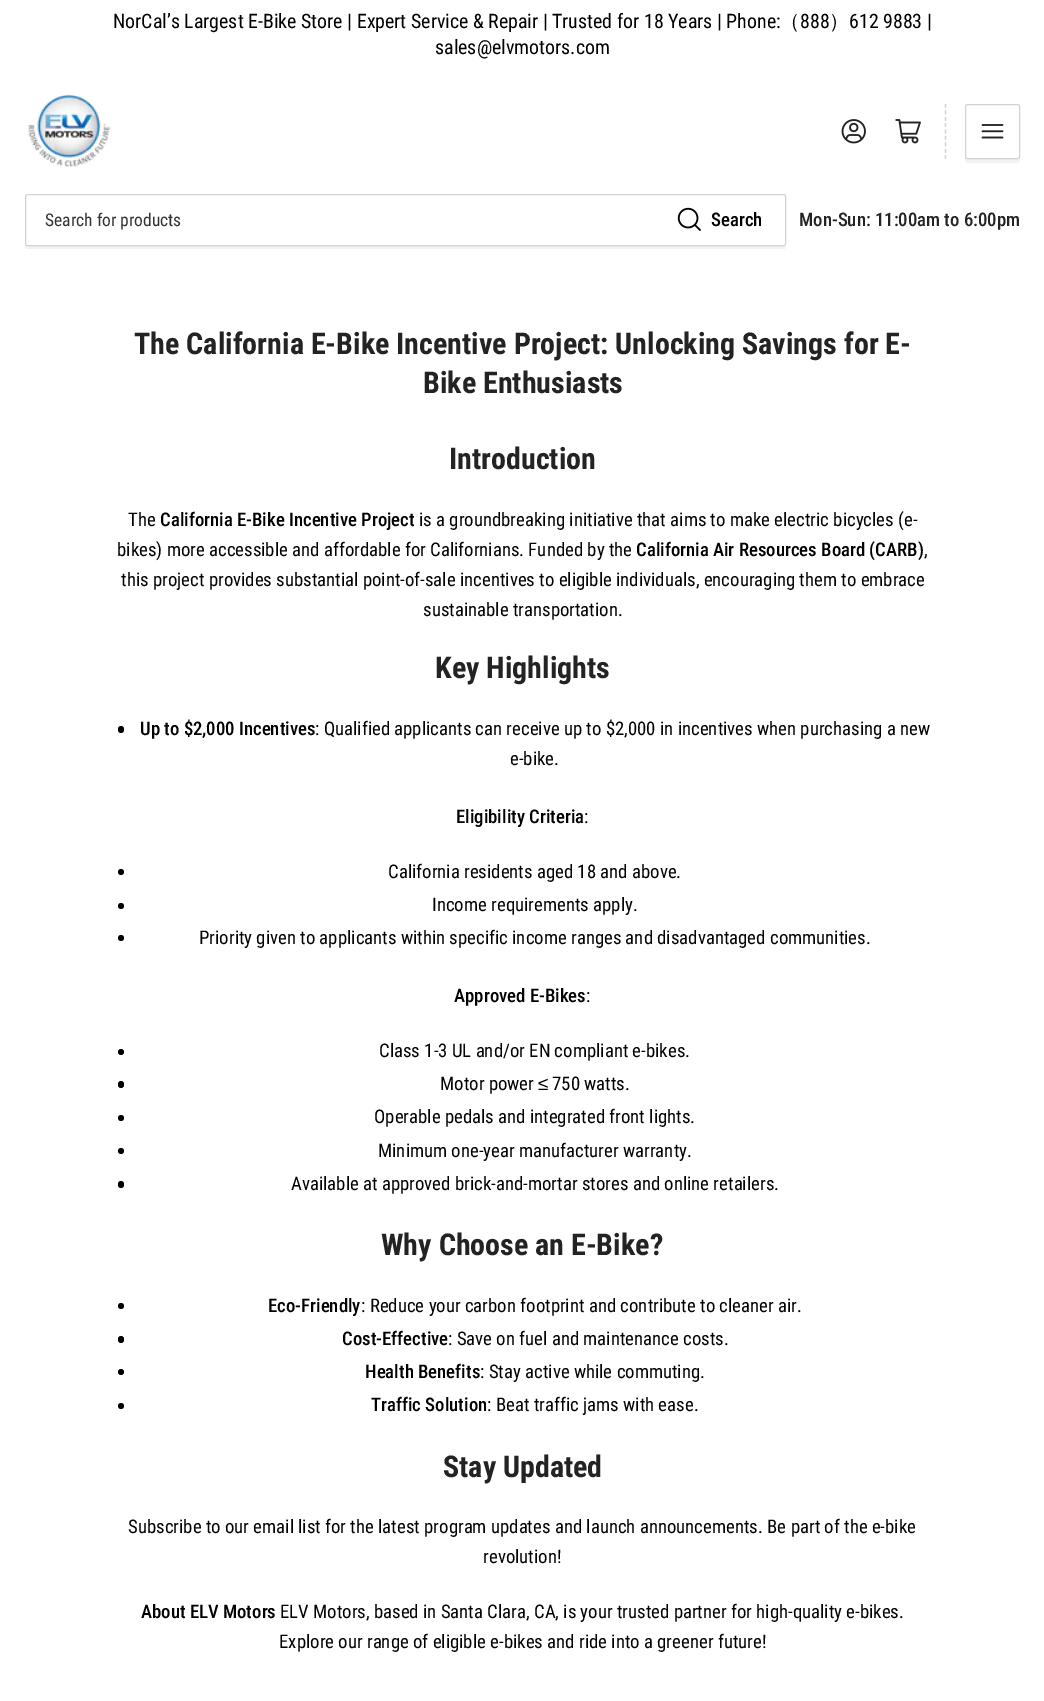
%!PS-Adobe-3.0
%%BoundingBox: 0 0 1044 1701
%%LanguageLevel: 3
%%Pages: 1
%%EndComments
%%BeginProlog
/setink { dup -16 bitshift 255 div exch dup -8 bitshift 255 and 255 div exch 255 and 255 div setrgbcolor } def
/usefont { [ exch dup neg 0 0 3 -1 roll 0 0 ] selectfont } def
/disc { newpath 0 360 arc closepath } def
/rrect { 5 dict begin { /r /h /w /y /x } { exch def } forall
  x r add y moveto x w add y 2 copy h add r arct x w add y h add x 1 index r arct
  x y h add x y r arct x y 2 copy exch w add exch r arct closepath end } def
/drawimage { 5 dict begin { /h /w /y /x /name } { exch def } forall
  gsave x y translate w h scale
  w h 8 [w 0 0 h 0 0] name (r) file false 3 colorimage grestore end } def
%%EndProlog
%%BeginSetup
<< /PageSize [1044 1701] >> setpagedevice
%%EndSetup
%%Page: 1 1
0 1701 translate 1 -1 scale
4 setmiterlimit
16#FFFFFF setink
0 0 1044 1701 rectfill
/RobotoCondensed-Regular 19.9 usefont
16#000000 setink
113 28 moveto (NorCal’s Largest E-Bike Store | Expert Service & Repair | Trusted for 18 Years | Phone:) show
/WenQuanYiZenHei-Medium 19.9 usefont
780 28 moveto (（) show
/RobotoCondensed-Regular 19.9 usefont
800 28 moveto (888) show
/WenQuanYiZenHei-Medium 19.9 usefont
829 28 moveto (）) show
/RobotoCondensed-Regular 19.9 usefont
849 28 moveto (612 9883 |) show
435 54 moveto (sales@elvmotors.com) show
(img1.raw) 27 94 84 73 drawimage
(img2.raw) 841 119 25 25 drawimage
(img3.raw) 895 119 26 25 drawimage
16#D4D3D3 setink
1.2 setlinewidth
[3.75 2.65] 0 setdash
945.5 104 moveto 945.5 159 lineto stroke
16#F2F2F2 setink
965 156 moveto 965 165 966 163 976 163 curveto 1009 163 lineto 1019 163 1020 165 1020 156 curveto 1020 158 1019 159 1018 159 curveto 968 159 lineto 966 159 965 158 965 156 curveto closepath fill
16#D4D3D3 setink
1 setlinewidth
[] 0 setdash
965.5 104.5 54 54 2 rrect stroke
(img4.raw) 981 124 23 15 drawimage
16#F2F2F2 setink
25 244 moveto 25 246 lineto 25 248 26 249 28 249 curveto 784 249 lineto 785 249 786 248 786 246 curveto 786 245 lineto 786 246 785 246 784 246 curveto 28 246 lineto 26 246 25 245 25 244 curveto closepath fill
16#FFFFFF setink
25.5 194.5 760 51 2 rrect gsave fill grestore
16#D4D3D3 setink
stroke
/RobotoCondensed-Regular 17.5 usefont
16#333333 setink
45 226 moveto (Search for products) show
(img5.raw) 677 207 24 24 drawimage
/RobotoCondensed-Medium 18.75 usefont
16#000000 setink
711 226 moveto (Search) show
16#232323 setink
799 226 moveto (Mon-Sun: 11:00am to 6:00pm) show
/RobotoCondensed-Bold 30 usefont
[
    [(The California E-Bike Incentive Project: Unlocking Savings for E-) 134 354]
    [(Bike Enthusiasts) 423 393]
    [(Introduction) 449 469]
] { aload pop moveto show } forall
/RobotoCondensed-Regular 18.75 usefont
16#000000 setink
128 526 moveto (The) show
/RobotoCondensed-Medium 18.75 usefont
160 526 moveto (California E-Bike Incentive Project) show
/RobotoCondensed-Regular 18.75 usefont
419 526 moveto (is a groundbreaking initiative that aims to make electric bicycles \(e-) show
117 556 moveto (bikes\) more accessible and affordable for Californians. Funded by the) show
/RobotoCondensed-Medium 18.75 usefont
636 556 moveto (California Air Resources Board \(CARB\)) show
/RobotoCondensed-Regular 18.75 usefont
[
    [(,) 924 556]
    [(this project provides substantial point-of-sale incentives to eligible individuals, encouraging them to embrace) 121 586]
    [(sustainable transportation.) 423 616]
] { aload pop moveto show } forall
/RobotoCondensed-Bold 30 usefont
16#232323 setink
435 678 moveto (Key Highlights) show
16#000000 setink
118 726 6 7 3 rrect fill
/RobotoCondensed-Medium 18.75 usefont
140 735 moveto (Up to $2,000 Incentives) show
/RobotoCondensed-Regular 18.75 usefont
315 735 moveto (: Qualified applicants can receive up to $2,000 in incentives when purchasing a new) show
510 765 moveto (e-bike.) show
/RobotoCondensed-Medium 18.75 usefont
456 823 moveto (Eligibility Criteria) show
/RobotoCondensed-Regular 18.75 usefont
584 823 moveto (:) show
121 872 3 disc fill
388 878 moveto (California residents aged 18 and above.) show
121 906 3 disc fill
432 911 moveto (Income requirements apply.) show
121 938 3 disc fill
199 944 moveto (Priority given to applicants within specific income ranges and disadvantaged communities.) show
/RobotoCondensed-Medium 18.75 usefont
454 1002 moveto (Approved E-Bikes) show
/RobotoCondensed-Regular 18.75 usefont
586 1002 moveto (:) show
121 1052 3 disc fill
379 1057 moveto (Class 1-3 UL and/or EN compliant e-bikes.) show
118 1081 6 7 3 rrect fill
440 1090 moveto (Motor power) show
/LiberationSans-Regular 18.75 usefont
538 1090 moveto (≤) show
/RobotoCondensed-Regular 18.75 usefont
552 1090 moveto (750 watts.) show
121 1118 3 disc fill
374 1123 moveto (Operable pedals and integrated front lights.) show
121 1151 3 disc fill
378 1157 moveto (Minimum one-year manufacturer warranty.) show
118 1181 6 7 3 rrect fill
291 1190 moveto (Available at approved brick-and-mortar stores and online retailers.) show
/RobotoCondensed-Bold 30 usefont
16#232323 setink
381 1255 moveto (Why Choose an E-Bike?) show
16#000000 setink
121 1306 3 disc fill
/RobotoCondensed-Medium 18.75 usefont
268 1312 moveto (Eco-Friendly) show
/RobotoCondensed-Regular 18.75 usefont
361 1312 moveto (: Reduce your carbon footprint and contribute to cleaner air.) show
118 1336 6 7 3 rrect fill
/RobotoCondensed-Medium 18.75 usefont
342 1345 moveto (Cost-Effective) show
/RobotoCondensed-Regular 18.75 usefont
448 1345 moveto (: Save on fuel and maintenance costs.) show
121 1372 3 disc fill
/RobotoCondensed-Medium 18.75 usefont
365 1378 moveto (Health Benefits) show
/RobotoCondensed-Regular 18.75 usefont
480 1378 moveto (: Stay active while commuting.) show
121 1406 3 disc fill
/RobotoCondensed-Medium 18.75 usefont
371 1411 moveto (Traffic Solution) show
/RobotoCondensed-Regular 18.75 usefont
487 1411 moveto (: Beat traffic jams with ease.) show
/RobotoCondensed-Bold 30 usefont
16#232323 setink
443 1477 moveto (Stay Updated) show
/RobotoCondensed-Regular 18.75 usefont
16#000000 setink
128 1533 moveto (Subscribe to our email list for the latest program updates and launch announcements. Be part of the e-bike) show
483 1563 moveto (revolution!) show
/RobotoCondensed-Medium 18.75 usefont
141 1618 moveto (About ELV Motors) show
/RobotoCondensed-Regular 18.75 usefont
280 1618 moveto (ELV Motors, based in Santa Clara, CA, is your trusted partner for high-quality e-bikes.) show
279 1648 moveto (Explore our range of eligible e-bikes and ride into a greener future!) show
showpage
%%EOF
